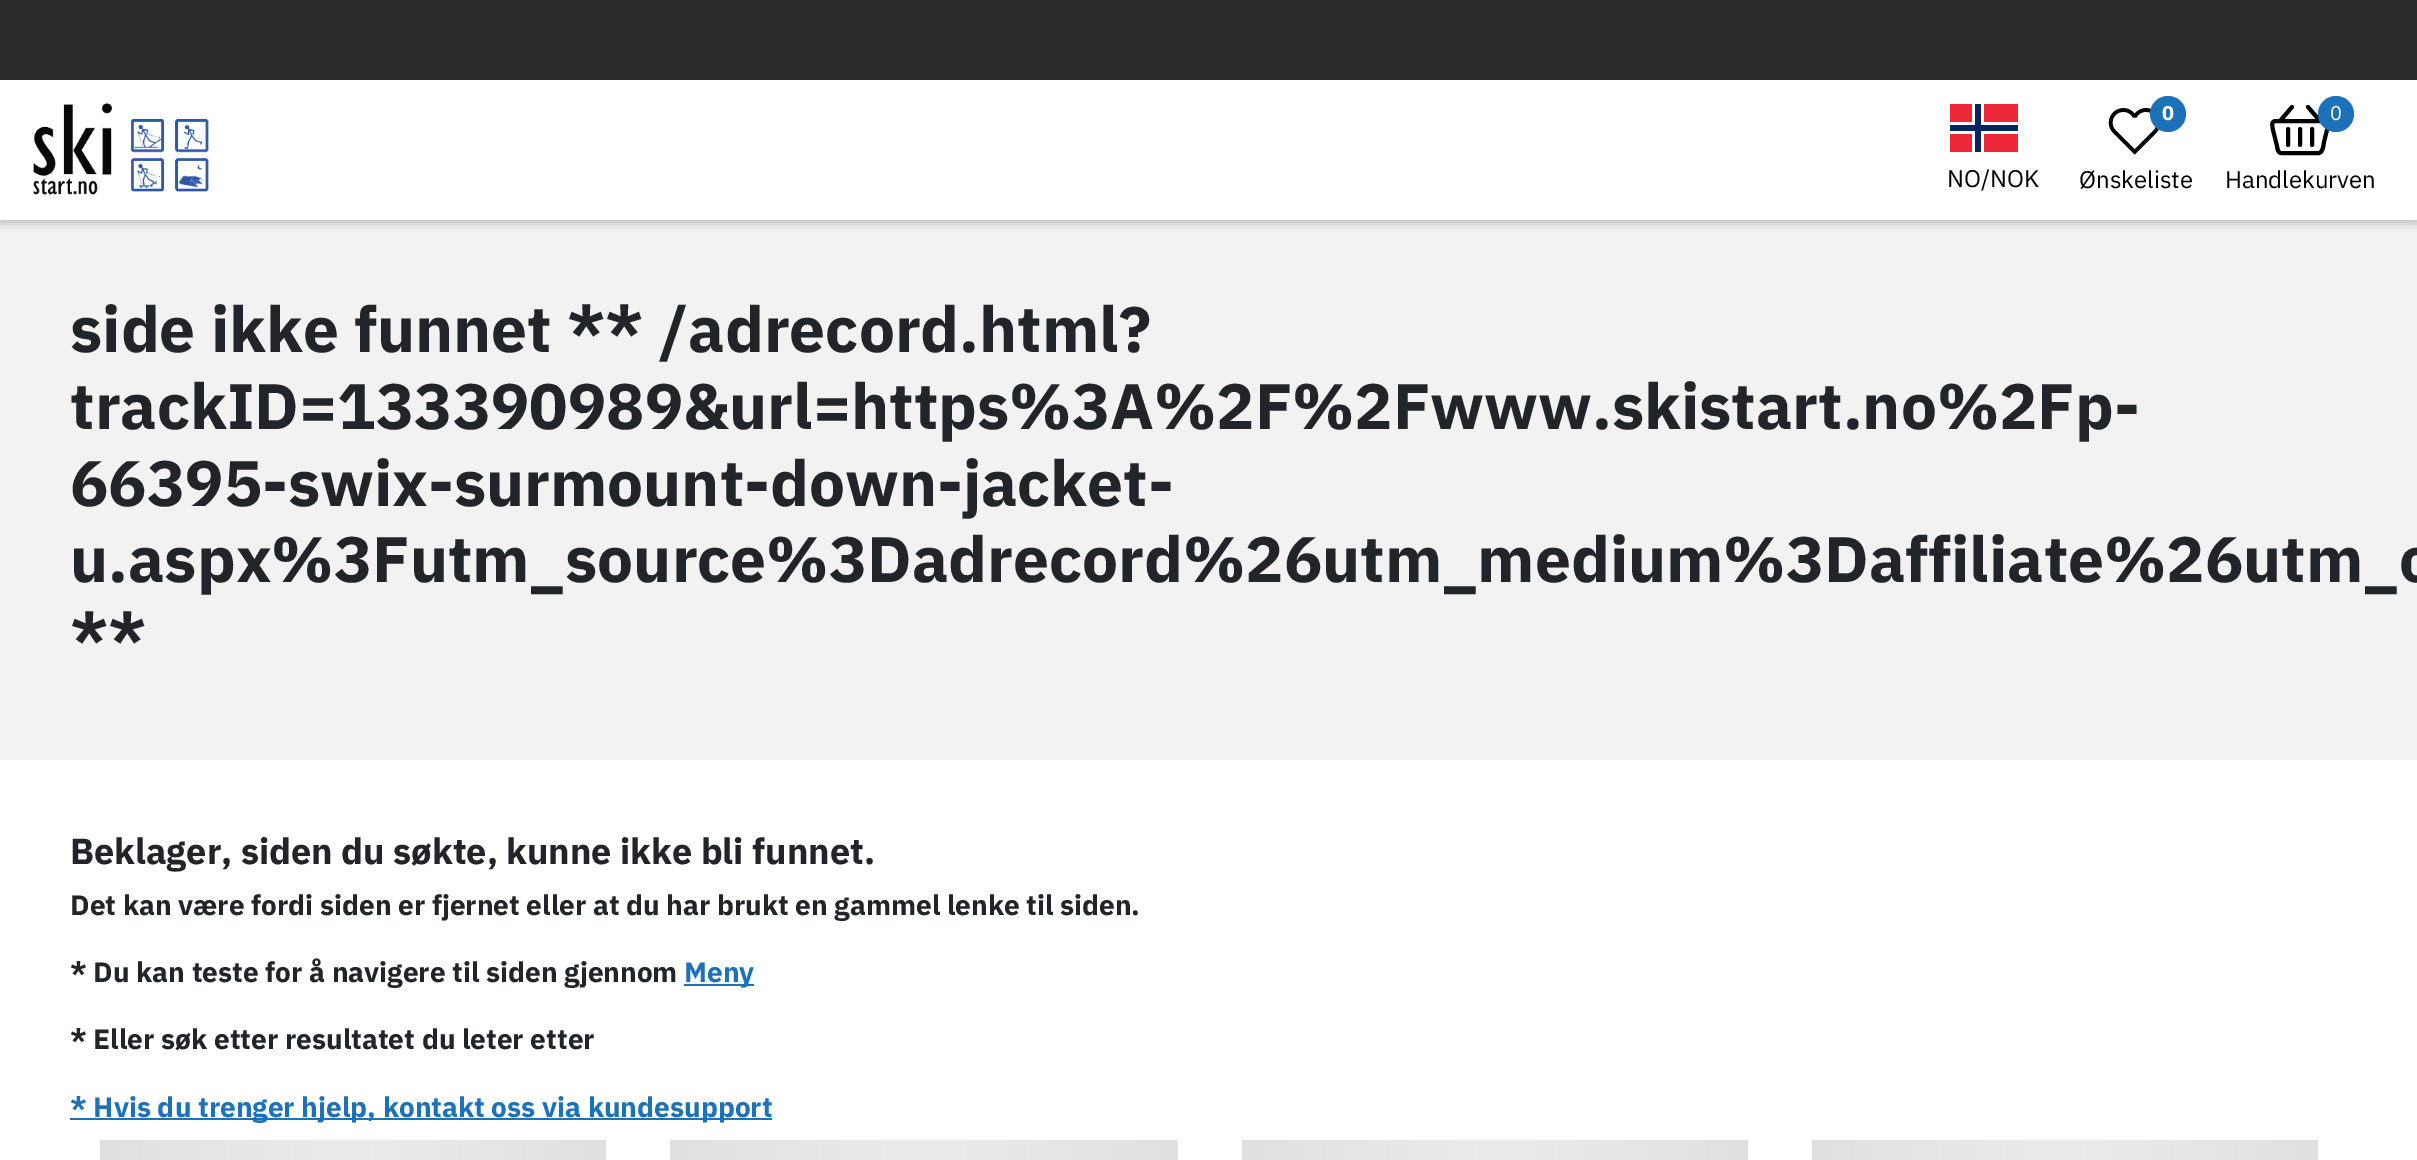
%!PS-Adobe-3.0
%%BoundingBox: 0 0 2417 1160
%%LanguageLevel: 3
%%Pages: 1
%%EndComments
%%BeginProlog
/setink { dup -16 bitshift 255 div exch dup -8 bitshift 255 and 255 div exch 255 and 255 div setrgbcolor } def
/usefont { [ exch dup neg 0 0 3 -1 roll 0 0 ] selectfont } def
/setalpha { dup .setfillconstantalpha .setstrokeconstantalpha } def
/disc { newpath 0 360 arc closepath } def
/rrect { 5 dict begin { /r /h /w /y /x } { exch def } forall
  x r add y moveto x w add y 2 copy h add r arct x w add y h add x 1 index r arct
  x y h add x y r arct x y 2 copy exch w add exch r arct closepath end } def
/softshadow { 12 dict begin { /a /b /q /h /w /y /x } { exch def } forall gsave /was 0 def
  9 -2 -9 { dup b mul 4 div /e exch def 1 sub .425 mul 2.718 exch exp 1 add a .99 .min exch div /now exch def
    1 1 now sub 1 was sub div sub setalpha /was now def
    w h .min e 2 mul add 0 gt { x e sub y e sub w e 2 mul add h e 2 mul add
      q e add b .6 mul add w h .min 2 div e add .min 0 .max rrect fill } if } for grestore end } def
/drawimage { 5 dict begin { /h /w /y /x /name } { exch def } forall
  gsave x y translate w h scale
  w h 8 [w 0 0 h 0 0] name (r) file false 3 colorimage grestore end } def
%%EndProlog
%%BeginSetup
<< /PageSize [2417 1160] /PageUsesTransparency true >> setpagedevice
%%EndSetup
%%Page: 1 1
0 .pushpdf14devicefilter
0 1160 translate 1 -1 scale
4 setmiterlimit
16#FFFFFF setink
0 0 2417 1160 rectfill
16#2C2C2D setink
0 0 2417 80 rectfill
16#F2F2F2 setink
0 220 2417 540 rectfill
gsave
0 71 moveto 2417 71 lineto 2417 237 lineto 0 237 lineto closepath 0 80 moveto 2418 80 lineto 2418 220 lineto 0 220 lineto closepath eoclip newpath
16#000000 setink
0 84 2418 140 0 4 0.2 softshadow
grestore
(img1.raw) 33 103 176 92 drawimage
(img2.raw) 1950 104 68 48 drawimage
/IBMPlexSans-Regular 24 usefont
16#000000 setink
1947 187 moveto (NO/NOK) show
(img3.raw) 2108 108 51 47 drawimage
16#1D71B8 setink
2168 114 18 disc fill
/IBMPlexSans-Bold 20 usefont
16#FFFFFF setink
2162 120 moveto (0) show
/IBMPlexSans-Regular 24 usefont
16#000000 setink
2079 188 moveto (Ønskeliste) show
4 setlinewidth
1 setlinecap
1 setlinejoin
2280 121 moveto 2292 107 lineto 2320 121 moveto 2308 107 lineto 2318.5 153 moveto 2281 153 lineto 2277.5 152.5 2277.5 148.5 2277 146 curveto 2273 130 lineto 2272.5 127 2270.5 121.5 2275.5 121 curveto 2325 121 lineto 2329.5 122.5 2327.5 127 2327 130 curveto 2324 142 lineto 2323.5 145 2323 153 2318.5 153 curveto 2288 129 moveto 2288 145 lineto 2300 129 moveto 2300 145 lineto 2312 129 moveto 2312 145 lineto stroke
16#1D71B8 setink
2336 114 18 disc fill
/IBMPlexSans-Regular 20 usefont
16#FFFFFF setink
2330 120 moveto (0) show
/IBMPlexSans-Regular 24 usefont
16#000000 setink
2225 188 moveto (Handlekurven) show
/IBMPlexSans-Bold 64 usefont
16#212529 setink
[
    [(side ikke funnet ** /adrecord.html?) 70 352]
    [(trackID=133390989&url=https%3A%2F%2Fwww.skistart.no%2Fp-) 70 429]
    [(66395-swix-surmount-down-jacket-) 70 506]
    [(u.aspx%3Futm_source%3Dadrecord%26utm_medium%3Daffiliate%26utm_c) 70 582]
    [(**) 70 659]
] { aload pop moveto show } forall
/IBMPlexSans-Bold 36 usefont
70 864 moveto (Beklager, siden du søkte, kunne ikke bli funnet.) show
/IBMPlexSans-Bold 28 usefont
70 915 moveto (Det kan være fordi siden er fjernet eller at du har brukt en gammel lenke til siden.) show
70 982 moveto (* Du kan teste for å navigere til siden gjennom) show
16#1D71B8 setink
684 984 70 2 rectfill
684 982 moveto (Meny) show
16#212529 setink
70 1049 moveto (* Eller søk etter resultatet du leter etter) show
16#1D71B8 setink
70 1118 702 2 rectfill
70 1117 moveto (* Hvis du trenger hjelp, kontakt oss via kundesupport) show
gsave 100 1140 moveto 606 1140 lineto 606 1160 lineto 100 1160 lineto closepath clip newpath
<< /ShadingType 2 /ColorSpace /DeviceRGB /Coords [100 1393 606 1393] /Extend [true true] /Function << /FunctionType 3 /Domain [0 1] /Functions [<< /FunctionType 2 /Domain [0 1] /C0 [0.878 0.878 0.878] /C1 [0.925 0.925 0.925] /N 1 >> << /FunctionType 2 /Domain [0 1] /C0 [0.925 0.925 0.925] /C1 [0.878 0.878 0.878] /N 1 >>] /Bounds [0.5] /Encode [0 1 0 1] >> >> shfill grestore
gsave 670 1140 moveto 1178 1140 lineto 1178 1160 lineto 670 1160 lineto closepath clip newpath
<< /ShadingType 2 /ColorSpace /DeviceRGB /Coords [670 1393 1178 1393] /Extend [true true] /Function << /FunctionType 3 /Domain [0 1] /Functions [<< /FunctionType 2 /Domain [0 1] /C0 [0.878 0.878 0.878] /C1 [0.925 0.925 0.925] /N 1 >> << /FunctionType 2 /Domain [0 1] /C0 [0.925 0.925 0.925] /C1 [0.878 0.878 0.878] /N 1 >>] /Bounds [0.5] /Encode [0 1 0 1] >> >> shfill grestore
gsave 1242 1140 moveto 1748 1140 lineto 1748 1160 lineto 1242 1160 lineto closepath clip newpath
<< /ShadingType 2 /ColorSpace /DeviceRGB /Coords [1242 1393 1748 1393] /Extend [true true] /Function << /FunctionType 3 /Domain [0 1] /Functions [<< /FunctionType 2 /Domain [0 1] /C0 [0.878 0.878 0.878] /C1 [0.925 0.925 0.925] /N 1 >> << /FunctionType 2 /Domain [0 1] /C0 [0.925 0.925 0.925] /C1 [0.878 0.878 0.878] /N 1 >>] /Bounds [0.5] /Encode [0 1 0 1] >> >> shfill grestore
gsave 1812 1140 moveto 2318 1140 lineto 2318 1160 lineto 1812 1160 lineto closepath clip newpath
<< /ShadingType 2 /ColorSpace /DeviceRGB /Coords [1812 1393 2318 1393] /Extend [true true] /Function << /FunctionType 3 /Domain [0 1] /Functions [<< /FunctionType 2 /Domain [0 1] /C0 [0.878 0.878 0.878] /C1 [0.925 0.925 0.925] /N 1 >> << /FunctionType 2 /Domain [0 1] /C0 [0.925 0.925 0.925] /C1 [0.878 0.878 0.878] /N 1 >>] /Bounds [0.5] /Encode [0 1 0 1] >> >> shfill grestore
.poppdf14devicefilter showpage
%%EOF
